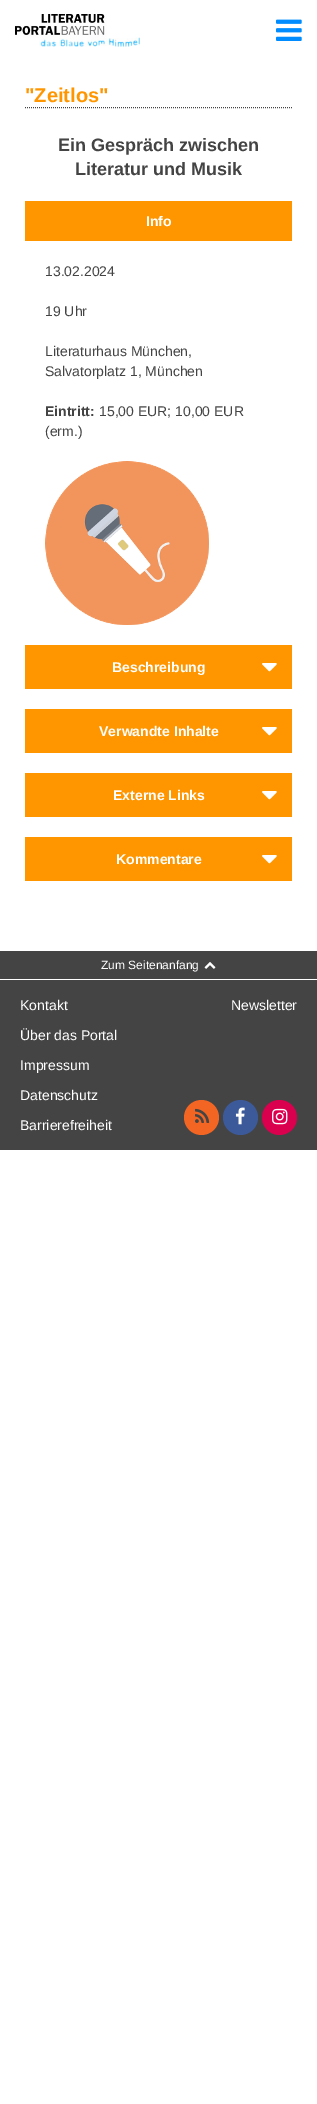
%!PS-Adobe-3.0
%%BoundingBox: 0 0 317 2104
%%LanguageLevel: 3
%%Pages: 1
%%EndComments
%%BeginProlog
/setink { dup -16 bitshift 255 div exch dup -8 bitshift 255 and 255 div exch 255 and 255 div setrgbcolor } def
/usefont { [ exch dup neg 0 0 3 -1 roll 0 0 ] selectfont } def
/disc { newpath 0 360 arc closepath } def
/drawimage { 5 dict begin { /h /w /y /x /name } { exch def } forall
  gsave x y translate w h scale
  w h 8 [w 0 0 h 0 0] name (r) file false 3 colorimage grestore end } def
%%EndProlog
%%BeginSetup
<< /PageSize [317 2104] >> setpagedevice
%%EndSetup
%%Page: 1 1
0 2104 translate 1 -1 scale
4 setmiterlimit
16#FFFFFF setink
0 0 317 2104 rectfill
(img1.raw) 15 14 125 33 drawimage
(img2.raw) 276 19 26 22 drawimage
16#444444 setink
[1 1] 0 setdash
25 107.5 moveto 292 107.5 lineto stroke
/LiberationSans-Bold 20 usefont
16#FF9600 setink
25 102 moveto ("Zeitlos") show
/LiberationSans-Bold 18 usefont
16#444444 setink
58 151 moveto (Ein Gespräch zwischen) show
75 175 moveto (Literatur und Musik) show
16#FF9600 setink
25 201 267 40 rectfill
/LiberationSans-Bold 14 usefont
16#FFFFFF setink
146 226 moveto (Info) show
/LiberationSans-Regular 14 usefont
16#444444 setink
[
    [(13.02.2024) 45 276]
    [(19 Uhr) 45 316]
    [(Literaturhaus München,) 45 356]
    [(Salvatorplatz 1, München) 45 376]
] { aload pop moveto show } forall
/LiberationSans-Bold 14 usefont
45 416 moveto (Eintritt:) show
/LiberationSans-Regular 14 usefont
99 416 moveto (15,00 EUR; 10,00 EUR) show
45 436 moveto (\(erm.\)) show
(img3.raw) 45 461 164 164 drawimage
16#FF9600 setink
25 645 267 44 rectfill
/LiberationSans-Bold 14 usefont
16#FFFFFF setink
112 672 moveto (Beschreibung) show
(img4.raw) 262 663 15 9 drawimage
16#FF9600 setink
25 709 267 44 rectfill
16#FFFFFF setink
99 736 moveto (Verwandte Inhalte) show
(img4.raw) 262 727 15 9 drawimage
16#FF9600 setink
25 773 267 44 rectfill
16#FFFFFF setink
113 800 moveto (Externe Links) show
(img4.raw) 262 791 15 9 drawimage
16#FF9600 setink
25 837 267 44 rectfill
16#FFFFFF setink
116 864 moveto (Kommentare) show
(img4.raw) 262 855 15 9 drawimage
16#444444 setink
0 951 317 28 rectfill
/LiberationSans-Regular 12 usefont
16#FFFFFF setink
101 969 moveto (Zum Seitenanfang) show
(img5.raw) 204 962 12 7 drawimage
16#444444 setink
0 980 317 170 rectfill
/LiberationSans-Regular 14 usefont
16#FFFFFF setink
[
    [(Kontakt) 20 1010]
    [(Über das Portal) 20 1040]
    [(Impressum) 20 1070]
    [(Datenschutz) 20 1100]
    [(Barrierefreiheit) 20 1130]
    [(Newsletter) 231 1010]
] { aload pop moveto show } forall
16#F26522 setink
201.5 1117.5 17.5 disc fill
(img6.raw) 195 1108 15 15 drawimage
16#3C5A99 setink
240.5 1117.5 17.5 disc fill
(img7.raw) 235 1107 10 18 drawimage
16#DB004D setink
279.5 1117.5 17.5 disc fill
(img8.raw) 272 1108 16 17 drawimage
showpage
%%EOF
